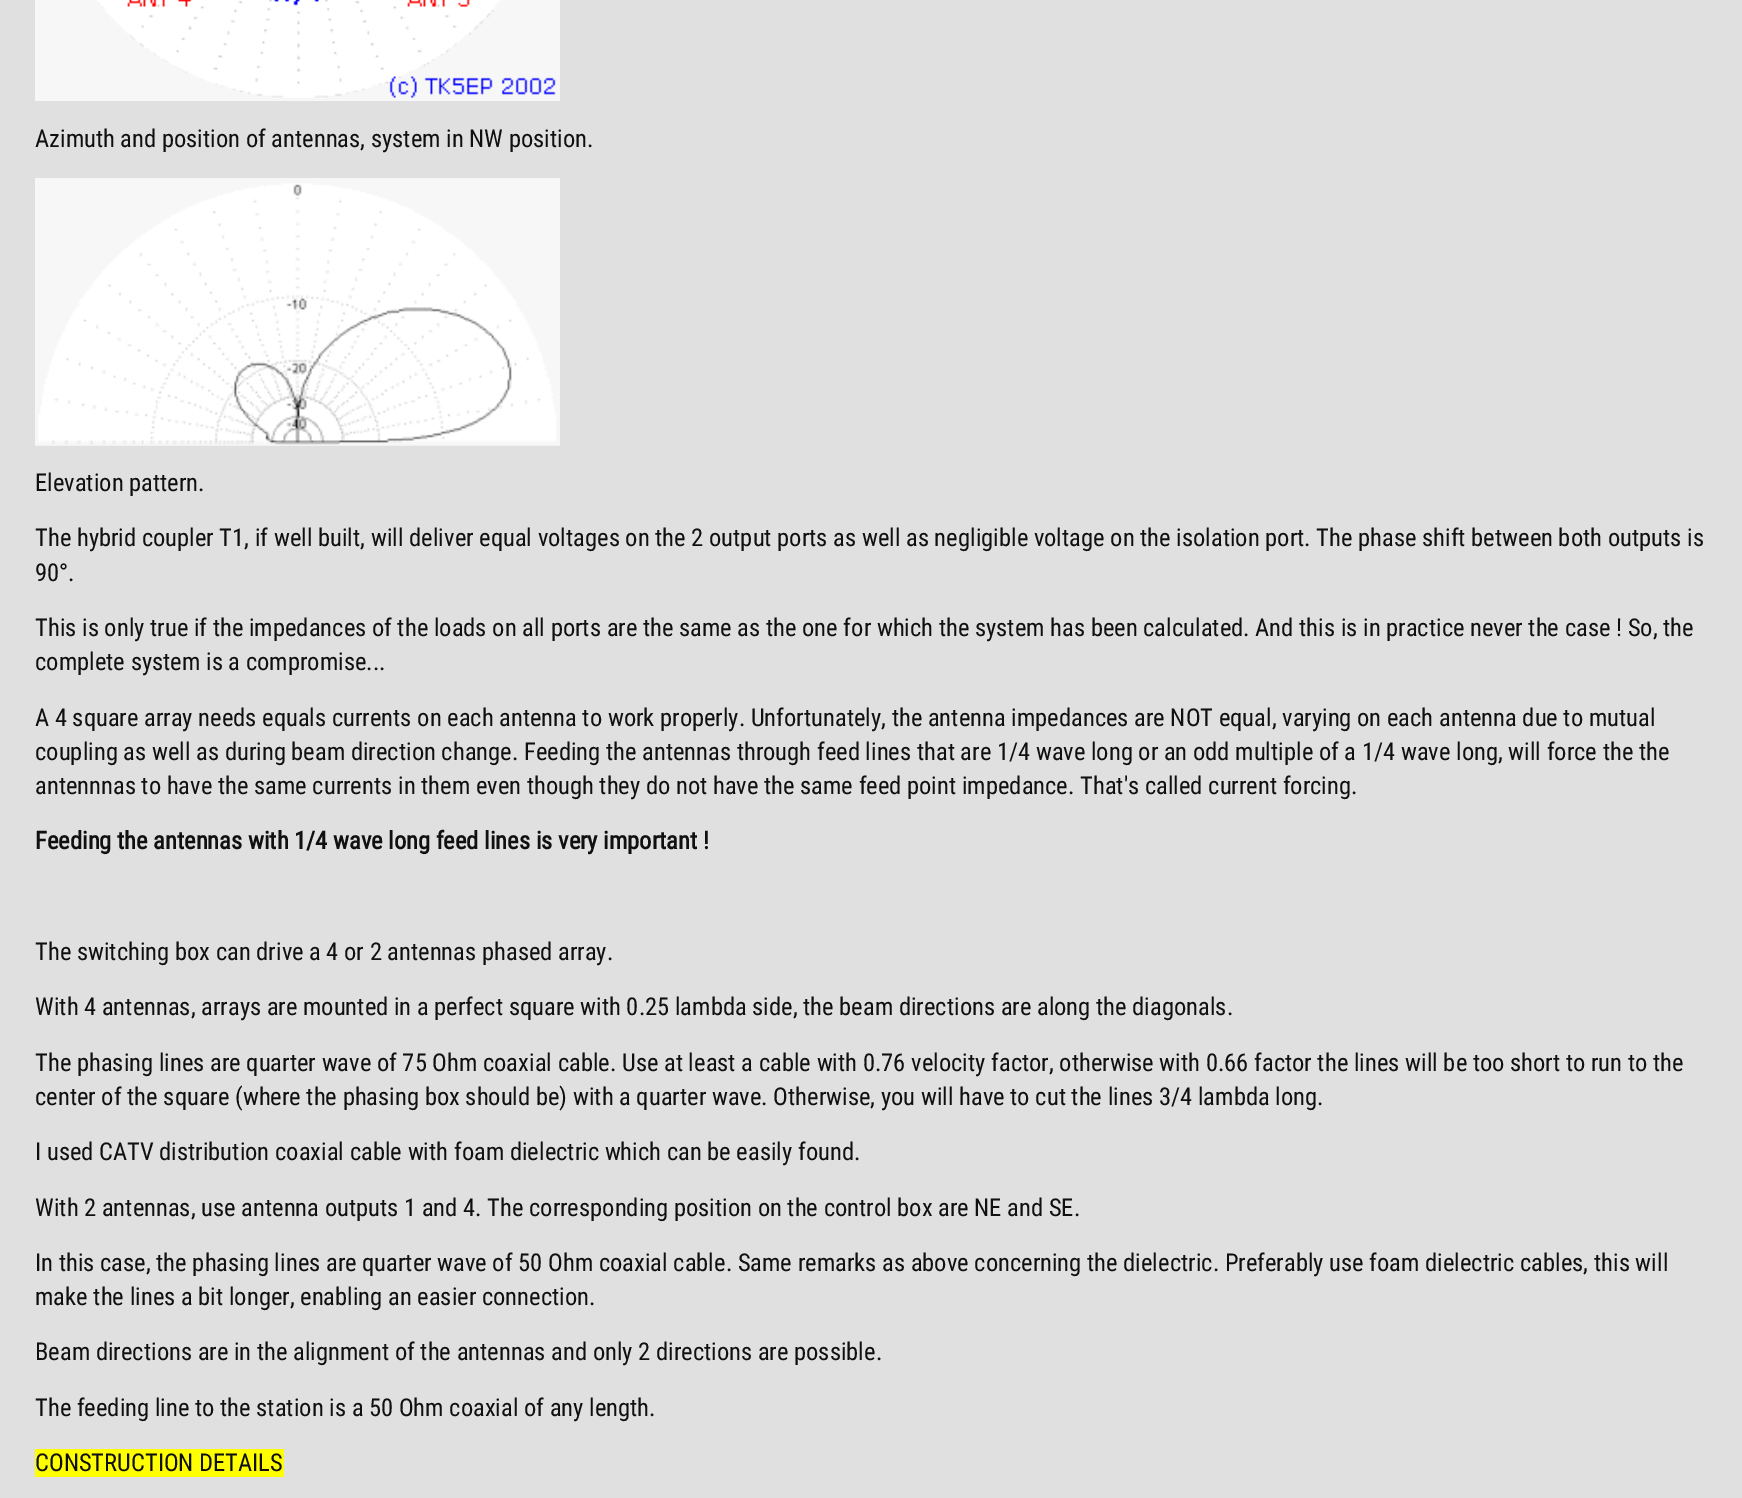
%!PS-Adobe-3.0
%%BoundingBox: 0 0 1742 1498
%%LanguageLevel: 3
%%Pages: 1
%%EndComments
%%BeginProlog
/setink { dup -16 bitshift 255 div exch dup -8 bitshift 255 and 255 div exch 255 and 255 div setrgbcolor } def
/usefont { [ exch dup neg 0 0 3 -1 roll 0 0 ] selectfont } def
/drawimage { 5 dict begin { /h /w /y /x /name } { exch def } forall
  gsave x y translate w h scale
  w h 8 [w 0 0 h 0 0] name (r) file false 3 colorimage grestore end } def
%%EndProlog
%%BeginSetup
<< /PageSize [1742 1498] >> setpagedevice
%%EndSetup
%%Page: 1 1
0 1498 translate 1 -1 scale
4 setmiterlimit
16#E0E0E0 setink
0 0 1742 1498 rectfill
(img1.raw) 35 0 525 101 drawimage
/RobotoCondensed-Regular 24.5 usefont
16#101010 setink
35 147 moveto (Azimuth and position of antennas, system in NW position.) show
(img2.raw) 35 178 525 268 drawimage
[
    [(Elevation pattern.) 35 491]
    [(The hybrid coupler T1, if well built, will deliver equal voltages on the 2 output ports as well as negligible voltage on the isolation port. The phase shift between both outputs is) 35 546]
    [(90°.) 35 581]
    [(This is only true if the impedances of the loads on all ports are the same as the one for which the system has been calculated. And this is in practice never the case ! So, the) 35 636]
    [(complete system is a compromise...) 35 670]
    [(A 4 square array needs equals currents on each antenna to work properly. Unfortunately, the antenna impedances are NOT equal, varying on each antenna due to mutual) 35 726]
    [(coupling as well as during beam direction change. Feeding the antennas through feed lines that are 1/4 wave long or an odd multiple of a 1/4 wave long, will force the the) 35 760]
    [(antennnas to have the same currents in them even though they do not have the same feed point impedance. That's called current forcing.) 35 794]
] { aload pop moveto show } forall
/RobotoCondensed-Bold 24.5 usefont
35 849 moveto (Feeding the antennas with 1/4 wave long feed lines is very important !) show
/RobotoCondensed-Regular 24.5 usefont
[
    [(The switching box can drive a 4 or 2 antennas phased array.) 35 960]
    [(With 4 antennas, arrays are mounted in a perfect square with 0.25 lambda side, the beam directions are along the diagonals.) 35 1015]
    [(The phasing lines are quarter wave of 75 Ohm coaxial cable. Use at least a cable with 0.76 velocity factor, otherwise with 0.66 factor the lines will be too short to run to the) 35 1071]
    [(center of the square \(where the phasing box should be\) with a quarter wave. Otherwise, you will have to cut the lines 3/4 lambda long.) 35 1105]
    [(I used CATV distribution coaxial cable with foam dielectric which can be easily found.) 35 1160]
    [(With 2 antennas, use antenna outputs 1 and 4. The corresponding position on the control box are NE and SE.) 35 1216]
    [(In this case, the phasing lines are quarter wave of 50 Ohm coaxial cable. Same remarks as above concerning the dielectric. Preferably use foam dielectric cables, this will) 35 1271]
    [(make the lines a bit longer, enabling an easier connection.) 35 1305]
    [(Beam directions are in the alignment of the antennas and only 2 directions are possible.) 35 1360]
    [(The feeding line to the station is a 50 Ohm coaxial of any length.) 35 1416]
] { aload pop moveto show } forall
16#FFFF00 setink
35 1449 249 28 rectfill
16#101010 setink
35 1471 moveto (CONSTRUCTION DETAILS) show
showpage
%%EOF
